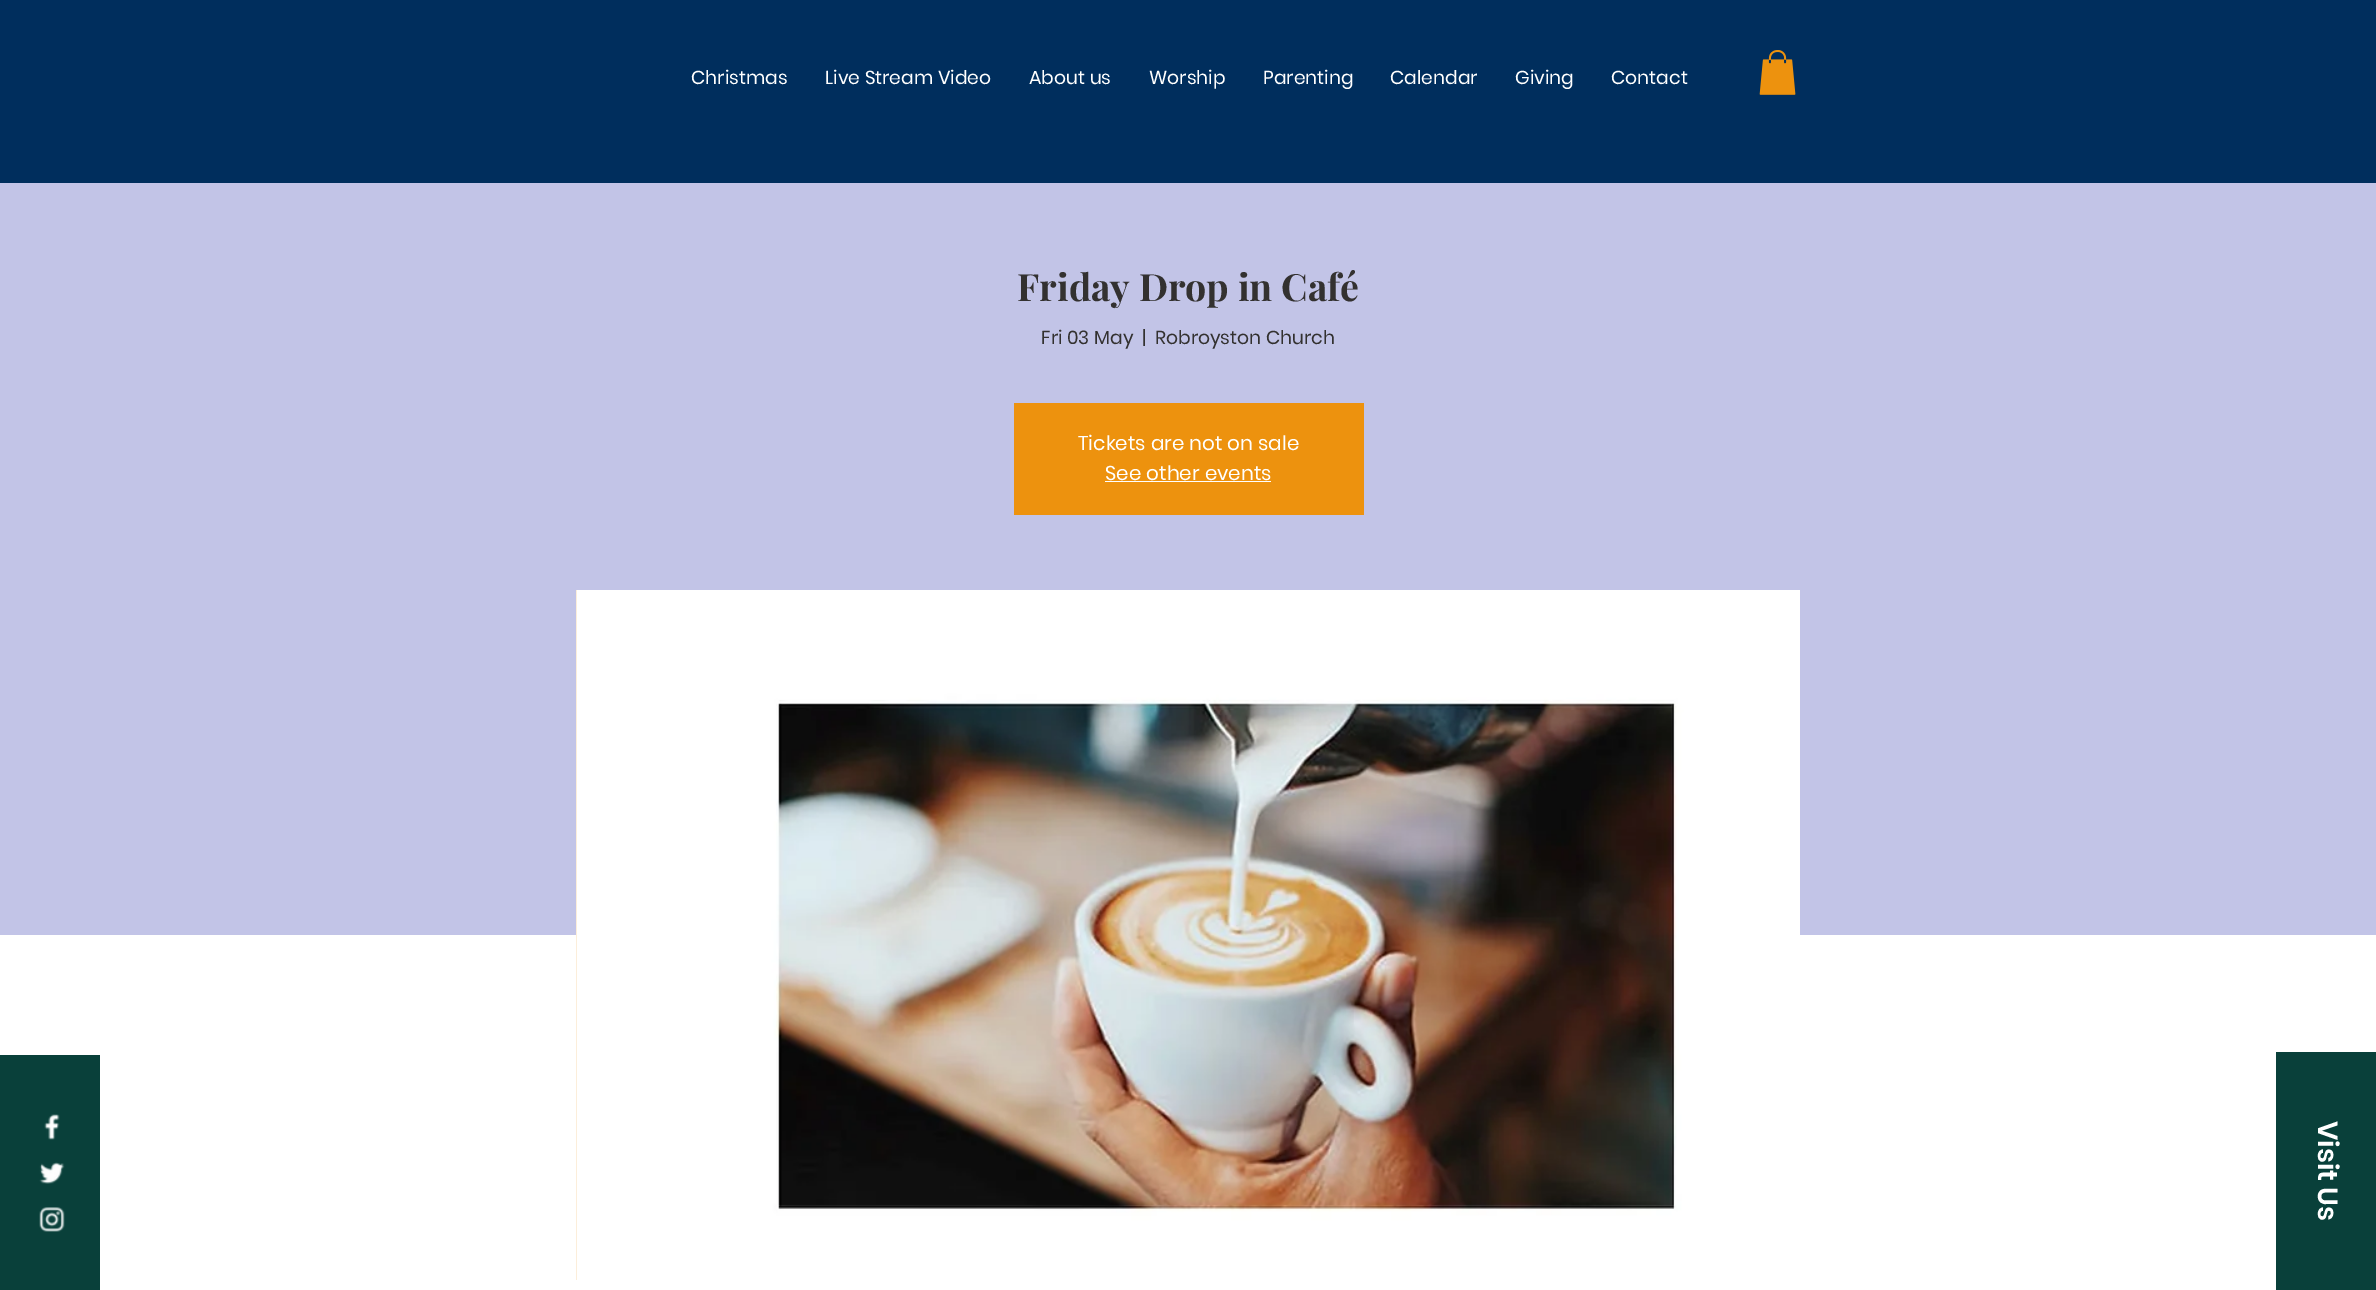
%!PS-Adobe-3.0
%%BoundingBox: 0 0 2376 1290
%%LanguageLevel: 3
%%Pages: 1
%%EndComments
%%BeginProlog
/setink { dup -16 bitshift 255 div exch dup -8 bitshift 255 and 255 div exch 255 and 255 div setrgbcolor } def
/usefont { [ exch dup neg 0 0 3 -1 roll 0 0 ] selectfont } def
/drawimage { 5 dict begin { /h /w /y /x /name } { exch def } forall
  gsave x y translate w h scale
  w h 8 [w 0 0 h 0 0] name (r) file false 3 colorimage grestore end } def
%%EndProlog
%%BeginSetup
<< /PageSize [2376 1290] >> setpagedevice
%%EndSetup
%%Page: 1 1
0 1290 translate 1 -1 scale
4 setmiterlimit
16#FFFFFF setink
0 0 2376 1290 rectfill
16#002E5D setink
0 0 2376 183 rectfill
(img1.raw) 1759 50 37 45 drawimage
/Poppins-Regular 18.75 usefont
16#FFFFFF setink
[
    [(Christmas) 691 84]
    [(Live Stream Video) 825 84]
    [(About us) 1029 84]
    [(Worship) 1149 84]
    [(Parenting) 1263 84]
    [(Calendar) 1390 84]
    [(Giving) 1515 84]
    [(Contact) 1611 84]
] { aload pop moveto show } forall
16#C2C4E7 setink
0 183 2376 752 rectfill
/PlayfairDisplay-Bold 37.5 usefont
16#333130 setink
1017 301 moveto (Friday Drop in Café) show
/Poppins-Regular 18.75 usefont
[
    [(Fri 03 May) 1041 344]
    [(|) 1142 344]
    [(Robroyston Church) 1155 344]
] { aload pop moveto show } forall
16#ED920E setink
1014 403 350 112 rectfill
/Poppins-Regular 20 usefont
16#FFFFFF setink
1078 450 moveto (Tickets are not on sale) show
1105 480 moveto (See other events) show
1105 481 166 1 rectfill
16#F9D9AB setink
576 590 1 690 rectfill
(img2.raw) 576 590 1224 690 drawimage
16#09403A setink
0 1055 100 235 rectfill
(img3.raw) 44 1114 16 26 drawimage
(img4.raw) 39 1162 26 22 drawimage
(img5.raw) 39 1207 26 25 drawimage
2276 1052 100 238 rectfill
/Poppins-SemiBold 27.5 usefont
16#FFFFFF setink
gsave 2318 1121 translate 90 rotate 0 0 moveto (Visit Us) show grestore
showpage
%%EOF
